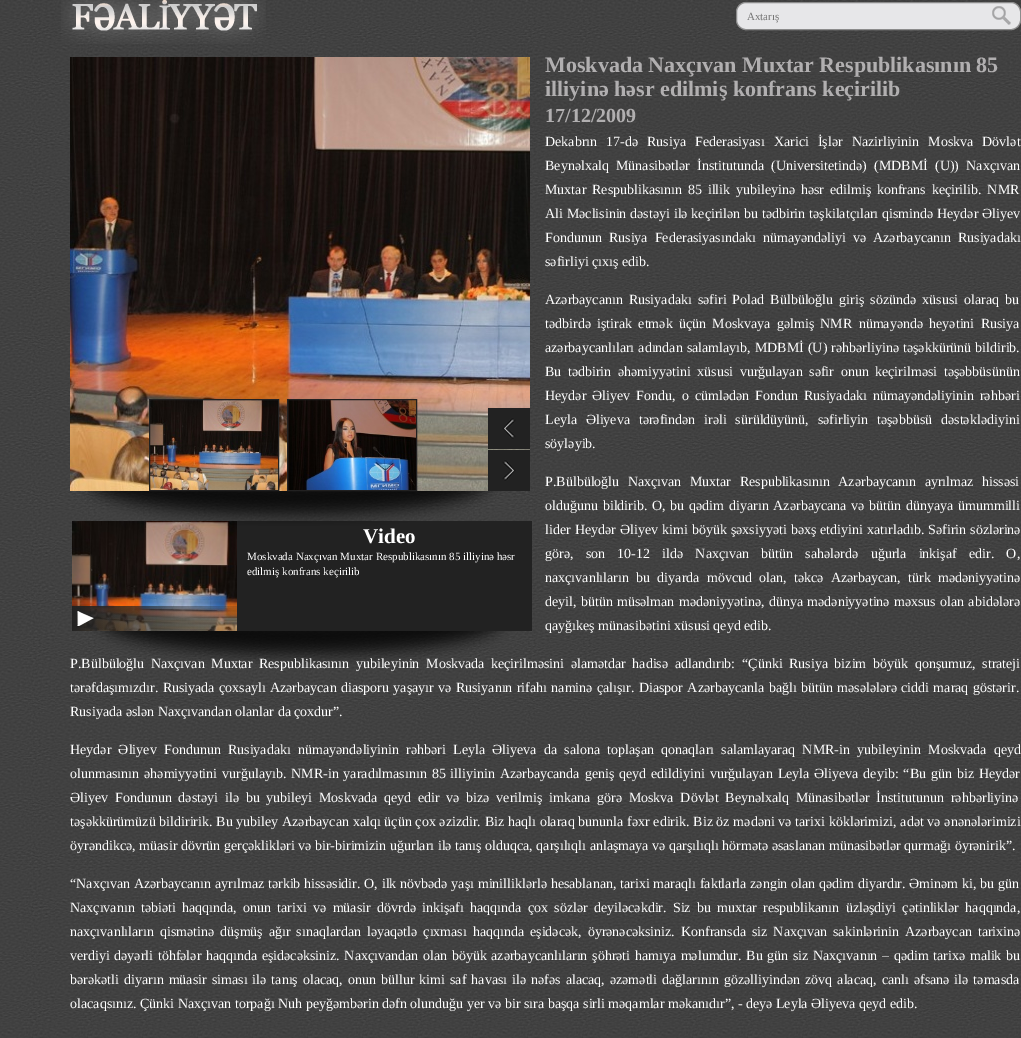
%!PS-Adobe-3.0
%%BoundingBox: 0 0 1021 1038
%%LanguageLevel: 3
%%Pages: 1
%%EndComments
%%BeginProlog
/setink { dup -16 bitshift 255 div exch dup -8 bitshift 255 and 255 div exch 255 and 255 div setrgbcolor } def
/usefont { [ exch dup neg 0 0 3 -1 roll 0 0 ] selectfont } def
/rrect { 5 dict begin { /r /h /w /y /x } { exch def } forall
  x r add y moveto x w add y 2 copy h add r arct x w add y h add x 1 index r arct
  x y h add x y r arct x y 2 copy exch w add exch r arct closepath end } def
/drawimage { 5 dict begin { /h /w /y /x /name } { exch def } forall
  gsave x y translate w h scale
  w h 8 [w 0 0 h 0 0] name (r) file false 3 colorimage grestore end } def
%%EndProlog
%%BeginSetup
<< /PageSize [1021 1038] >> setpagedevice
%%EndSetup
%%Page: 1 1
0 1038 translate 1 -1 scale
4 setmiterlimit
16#FFFFFF setink
0 0 1021 1038 rectfill
(img1.raw) 0 0 1021 1038 drawimage
(img2.raw) 61 0 205 44 drawimage
16#E7E7E9 setink
736.5 2.5 284 27 9.5 rrect gsave fill grestore
16#8C8C8C setink
stroke
/LiberationSerif-Regular 11 usefont
16#757575 setink
747 20 moveto (Axtarış) show
(img3.raw) 992 6 19 19 drawimage
/LiberationSerif-Bold 22 usefont
16#B1AFB0 setink
545 72 moveto (Moskvada Naxçıvan Muxtar Respublikasının 85) show
545 96 moveto (illiyinə həsr edilmiş konfrans keçirilib) show
/LiberationSerif-Bold 20 usefont
545 122 moveto (17/12/2009) show
/LiberationSerif-Regular 14 usefont
16#FFFFFF setink
545 146 moveto 5.5 0 32 (Dekabrın 17-də Rusiya Federasiyası Xarici İşlər Nazirliyinin Moskva Dövlət) widthshow
545 170 moveto 3.75 0 32 (Beynəlxalq Münasibətlər İnstitutunda \(Universitetində\) \(MDBMİ \(U\)\) Naxçıvan) widthshow
545 194 moveto 2.25 0 32 (Muxtar Respublikasının 85 illik yubileyinə həsr edilmiş konfrans keçirilib. NMR) widthshow
545 218 moveto 0.25 0 32 (Ali Məclisinin dəstəyi ilə keçirilən bu tədbirin təşkilatçıları qismində Heydər Əliyev) widthshow
545 242 moveto 3.5 0 32 (Fondunun Rusiya Federasiyasındakı nümayəndəliyi və Azərbaycanın Rusiyadakı) widthshow
545 266 moveto (səfirliyi çıxış edib.) show
545 304 moveto 2.5 0 32 (Azərbaycanın Rusiyadakı səfiri Polad Bülbüloğlu giriş sözündə xüsusi olaraq bu) widthshow
545 328 moveto 2.75 0 32 (tədbirdə iştirak etmək üçün Moskvaya gəlmiş NMR nümayəndə heyətini Rusiya) widthshow
545 352 moveto 0.5 0 32 (azərbaycanlıları adından salamlayıb, MDBMİ \(U\) rəhbərliyinə təşəkkürünü bildirib.) widthshow
545 376 moveto 3 0 32 (Bu tədbirin əhəmiyyətini xüsusi vurğulayan səfir onun keçirilməsi təşəbbüsünün) widthshow
545 400 moveto 2.5 0 32 (Heydər Əliyev Fondu, o cümlədən Fondun Rusiyadakı nümayəndəliyinin rəhbəri) widthshow
545 424 moveto 5.25 0 32 (Leyla Əliyeva tərəfindən irəli sürüldüyünü, səfirliyin təşəbbüsü dəstəklədiyini) widthshow
545 448 moveto (söyləyib.) show
545 486 moveto 5 0 32 (P.Bülbüloğlu Naxçıvan Muxtar Respublikasının Azərbaycanın ayrılmaz hissəsi) widthshow
545 510 moveto 1.25 0 32 (olduğunu bildirib. O, bu qədim diyarın Azərbaycana və bütün dünyaya ümummilli) widthshow
545 534 moveto 0.5 0 32 (lider Heydər Əliyev kimi böyük şəxsiyyəti bəxş etdiyini xatırladıb. Səfirin sözlərinə) widthshow
545 558 moveto 8.75 0 32 (görə, son 10-12 ildə Naxçıvan bütün sahələrdə uğurla inkişaf edir. O,) widthshow
545 582 moveto 3.75 0 32 (naxçıvanlıların bu diyarda mövcud olan, təkcə Azərbaycan, türk mədəniyyətinə) widthshow
545 606 moveto 0.75 0 32 (deyil, bütün müsəlman mədəniyyətinə, dünya mədəniyyətinə məxsus olan abidələrə) widthshow
545 630 moveto (qayğıkeş münasibətini xüsusi qeyd edib.) show
(img10.raw) 90 631 422 33 drawimage
70 668 moveto 3.1 0 32 (P.Bülbüloğlu Naxçıvan Muxtar Respublikasının yubileyinin Moskvada keçirilməsini əlamətdar hadisə adlandırıb: “Çünki Rusiya bizim böyük qonşumuz, strateji) widthshow
70 692 moveto 0.8 0 32 (tərəfdaşımızdır. Rusiyada çoxsaylı Azərbaycan diasporu yaşayır və Rusiyanın rifahı naminə çalışır. Diaspor Azərbaycanla bağlı bütün məsələlərə ciddi maraq göstərir.) widthshow
70 716 moveto (Rusiyada əslən Naxçıvandan olanlar da çoxdur”.) show
70 754 moveto 3.75 0 32 (Heydər Əliyev Fondunun Rusiyadakı nümayəndəliyinin rəhbəri Leyla Əliyeva da salona toplaşan qonaqları salamlayaraq NMR-in yubileyinin Moskvada qeyd) widthshow
70 778 moveto 1.4 0 32 (olunmasının əhəmiyyətini vurğulayıb. NMR-in yaradılmasının 85 illiyinin Azərbaycanda geniş qeyd edildiyini vurğulayan Leyla Əliyeva deyib: “Bu gün biz Heydər) widthshow
70 802 moveto 3.25 0 32 (Əliyev Fondunun dəstəyi ilə bu yubileyi Moskvada qeyd edir və bizə verilmiş imkana görə Moskva Dövlət Beynəlxalq Münasibətlər İnstitutunun rəhbərliyinə) widthshow
70 826 moveto 0.25 0 32 (təşəkkürümüzü bildiririk. Bu yubiley Azərbaycan xalqı üçün çox əzizdir. Biz haqlı olaraq bununla fəxr edirik. Biz öz mədəni və tarixi köklərimizi, adət və ənənələrimizi) widthshow
70 850 moveto (öyrəndikcə, müasir dövrün gerçəklikləri və bir-birimizin uğurları ilə tanış olduqca, qarşılıqlı anlaşmaya və qarşılıqlı hörmətə əsaslanan münasibətlər qurmağı öyrənirik”.) show
70 888 moveto 0.25 0 32 (“Naxçıvan Azərbaycanın ayrılmaz tərkib hissəsidir. O, ilk növbədə yaşı minilliklərlə hesablanan, tarixi maraqlı faktlarla zəngin olan qədim diyardır. Əminəm ki, bu gün) widthshow
70 912 moveto 2.75 0 32 (Naxçıvanın təbiəti haqqında, onun tarixi və müasir dövrdə inkişafı haqqında çox sözlər deyiləcəkdir. Siz bu muxtar respublikanın üzləşdiyi çətinliklər haqqında,) widthshow
70 936 moveto 2.4 0 32 (naxçıvanlıların qismətinə düşmüş ağır sınaqlardan ləyaqətlə çıxması haqqında eşidəcək, öyrənəcəksiniz. Konfransda siz Naxçıvan sakinlərinin Azərbaycan tarixinə) widthshow
70 960 moveto 1.1 0 32 (verdiyi dəyərli töhfələr haqqında eşidəcəksiniz. Naxçıvandan olan böyük azərbaycanlıların şöhrəti hamıya məlumdur. Bu gün siz Naxçıvanın – qədim tarixə malik bu) widthshow
70 984 moveto 1.5 0 32 (bərəkətli diyarın müasir siması ilə tanış olacaq, onun büllur kimi saf havası ilə nəfəs alacaq, əzəmətli dağlarının gözəlliyindən zövq alacaq, canlı əfsanə ilə təmasda) widthshow
70 1008 moveto (olacaqsınız. Çünki Naxçıvan torpağı Nuh peyğəmbərin dəfn olunduğu yer və bir sıra başqa sirli məqamlar məkanıdır”, - deyə Leyla Əliyeva qeyd edib.) show
(img4.raw) 70 57 460 434 drawimage
16#222222 setink
237 521 295 110 rectfill
(img11.raw) 72 521 165 110 drawimage
(img5.raw) 77 491 424 35 drawimage
(img6.raw) 150 400 128 90 drawimage
16#222121 setink
149.5 399.5 129 91 rectstroke
(img7.raw) 288 400 128 90 drawimage
287.5 399.5 129 91 rectstroke
(img8.raw) 488 408 42 41 drawimage
(img9.raw) 488 450 42 41 drawimage
(img12.raw) 72 606 165 25 drawimage
/LiberationSerif-Bold 21 usefont
16#FFFFFF setink
363 543 moveto (Video) show
/LiberationSerif-Regular 11 usefont
247 560 moveto (Moskvada Naxçıvan Muxtar Respublikasının 85 illiyinə həsr) show
247 575 moveto (edilmiş konfrans keçirilib) show
showpage
%%EOF
